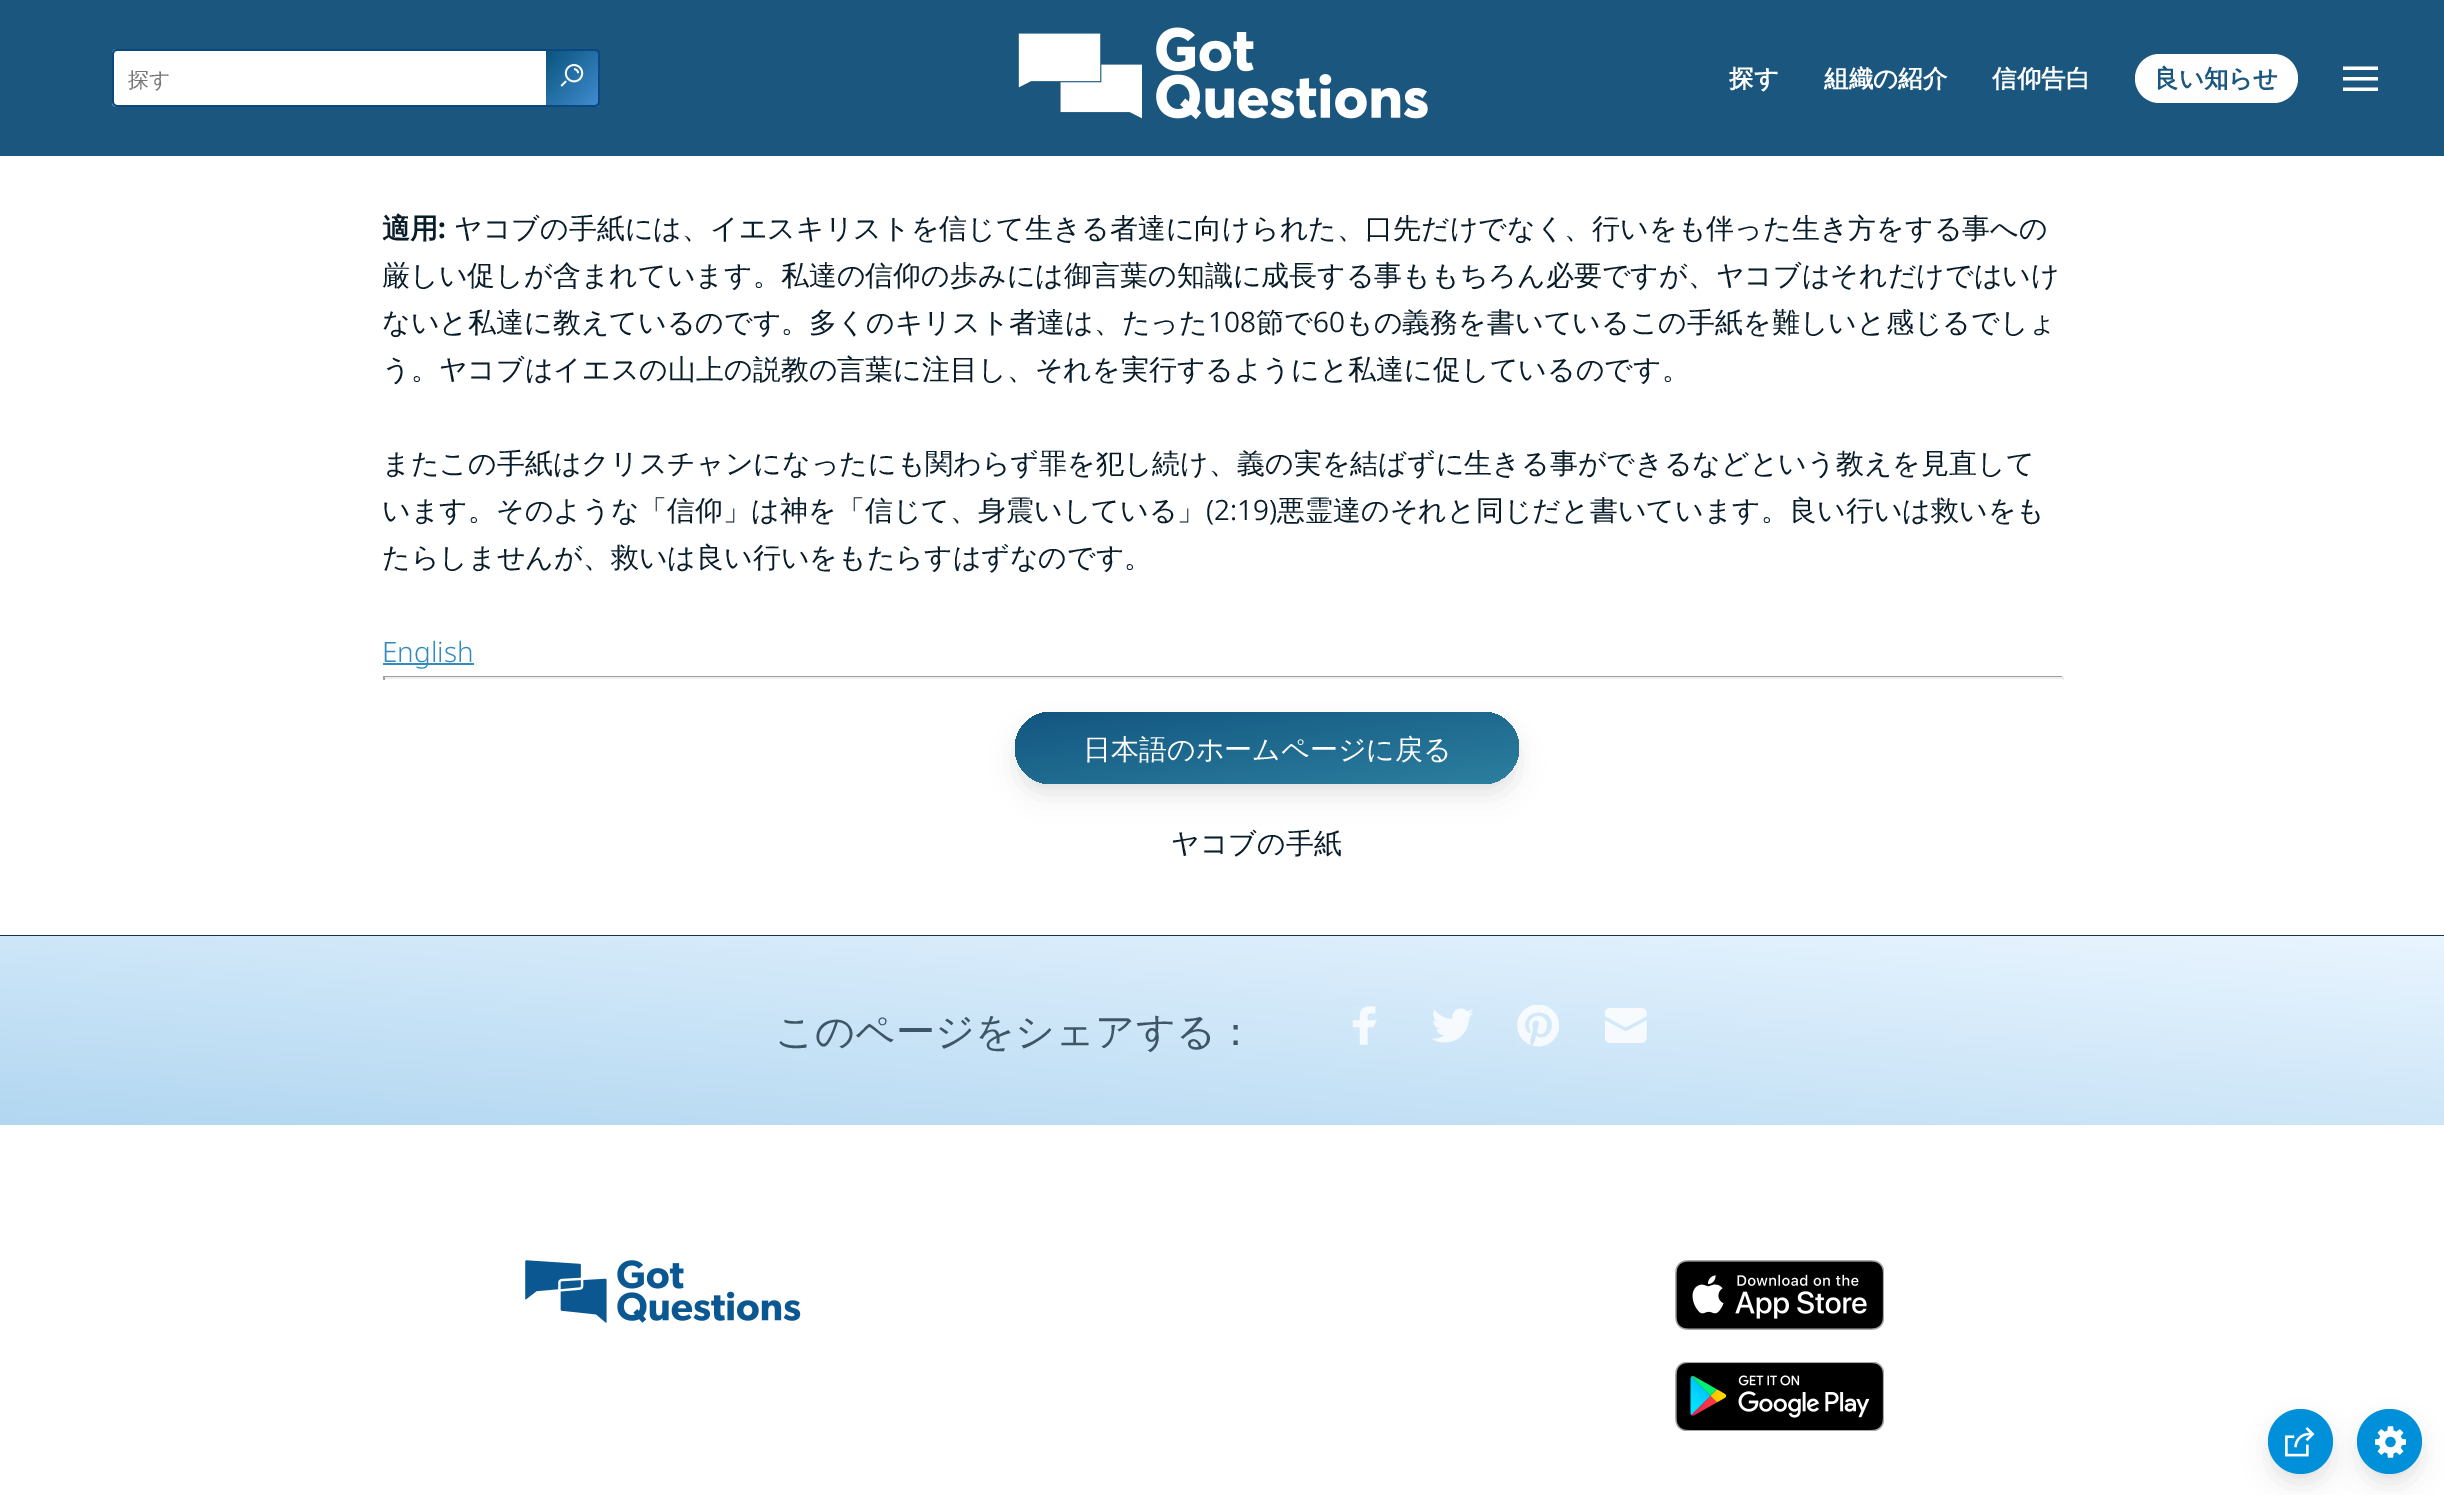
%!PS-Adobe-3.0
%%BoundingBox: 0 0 2444 1495
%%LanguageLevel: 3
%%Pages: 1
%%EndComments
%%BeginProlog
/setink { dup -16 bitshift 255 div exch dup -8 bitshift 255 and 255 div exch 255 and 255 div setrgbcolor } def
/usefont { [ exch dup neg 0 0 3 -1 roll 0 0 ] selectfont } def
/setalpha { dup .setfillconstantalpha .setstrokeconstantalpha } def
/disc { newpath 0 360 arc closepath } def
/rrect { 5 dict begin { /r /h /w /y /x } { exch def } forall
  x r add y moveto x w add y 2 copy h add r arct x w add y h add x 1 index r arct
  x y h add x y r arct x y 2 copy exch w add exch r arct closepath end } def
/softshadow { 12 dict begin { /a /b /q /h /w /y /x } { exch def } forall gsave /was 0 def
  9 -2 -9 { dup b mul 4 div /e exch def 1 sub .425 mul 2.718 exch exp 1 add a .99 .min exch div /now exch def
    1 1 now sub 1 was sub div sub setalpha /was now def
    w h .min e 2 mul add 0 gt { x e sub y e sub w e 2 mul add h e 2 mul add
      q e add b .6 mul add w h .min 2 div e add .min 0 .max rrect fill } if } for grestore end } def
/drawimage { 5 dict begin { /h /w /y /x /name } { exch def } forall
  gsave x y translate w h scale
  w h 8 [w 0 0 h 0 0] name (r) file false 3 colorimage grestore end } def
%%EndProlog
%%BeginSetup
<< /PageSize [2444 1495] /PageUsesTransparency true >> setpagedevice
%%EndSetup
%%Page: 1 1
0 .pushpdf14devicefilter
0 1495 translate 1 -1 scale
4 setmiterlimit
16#FFFFFF setink
0 0 2444 1495 rectfill
16#1A567E setink
0 0 2444 156 rectfill
16#FFFFFF setink
117 49 moveto 546 49 lineto 546 107 lineto 117 107 lineto 114 107 112 105 112 102 curveto 112 54 lineto 112 51 114 49 117 49 curveto closepath fill
16#094881 setink
117 49 moveto 546 49 lineto 546 107 lineto 117 107 lineto 114 107 112 104 112 102 curveto 112 54 lineto 112 51 114 49 117 49 curveto closepath 117 51 moveto 546 51 lineto 546 105 lineto 117 105 lineto 115 105 114 103 114 102 curveto 114 54 lineto 114 52 115 51 117 51 curveto closepath eofill
/WenQuanYiZenHei-Medium 21 usefont
16#757575 setink
128 87 moveto (探す) show
gsave 546 51 moveto 599 51 lineto 599 105 lineto 546 105 lineto closepath clip newpath
<< /ShadingType 2 /ColorSpace /DeviceRGB /Coords [545 52 599 104] /Extend [true true] /Function << /FunctionType 2 /Domain [0 1] /C0 [0.039 0.329 0.49] /C1 [0.251 0.549 0.816] /N 1 >> >> shfill grestore
gsave
546 49 moveto 595 49 lineto 598 49 600 51 600 54 curveto 600 102 lineto 600 105 598 107 595 107 curveto 546 107 lineto closepath clip newpath
gsave 595 105 moveto 599 105 lineto 599 107 lineto 595 107 lineto closepath clip newpath
<< /ShadingType 2 /ColorSpace /DeviceRGB /Coords [545 106 599 158] /Extend [true true] /Function << /FunctionType 2 /Domain [0 1] /C0 [0.039 0.329 0.49] /C1 [0.251 0.549 0.816] /N 1 >> >> shfill grestore
grestore
16#094881 setink
546 49 moveto 595 49 lineto 598 49 600 51 600 54 curveto 600 102 lineto 600 104 598 107 595 107 curveto 546 107 lineto closepath 546 51 moveto 595 51 lineto 597 51 598 52 598 54 curveto 598 102 lineto 598 103 597 105 595 105 curveto 546 105 lineto closepath eofill
(img1.raw) 560 64 24 23 drawimage
(img2.raw) 1018 27 410 93 drawimage
/WenQuanYiZenHei-Bold 24.5 usefont
16#FFFFFF setink
[
    [(探す) 1729 87]
    [(組織の紹介) 1824 87]
    [(信仰告白) 1992 87]
] { aload pop moveto show } forall
2135 54 163 49 24.5 rrect fill
16#1A567E setink
2154 87 moveto (良い知らせ) show
16#FFFFFF setink
2343 66.5 moveto 2378 66.5 lineto 2378 70 lineto 2343 70 lineto closepath 2343 77 moveto 2378 77 lineto 2378 80.5 lineto 2343 80.5 lineto closepath 2343 87.5 moveto 2378 87.5 lineto 2378 91 lineto 2343 91 lineto closepath fill
16#1B3247 setink
0 935 2444 1 rectfill
/WenQuanYiZenHei-Bold 28 usefont
16#081C2A setink
382 238 moveto (適用) show
/NotoSans-Bold 28 usefont
438 238 moveto (:) show
/WenQuanYiZenHei-Medium 28 usefont
[
    [(ヤコブの手紙には、イエスキリストを信じて生きる者達に向けられた、口先だけでなく、行いをも伴った生き方をする事への) 454 238]
    [(厳しい促しが含まれています。私達の信仰の歩みには御言葉の知識に成長する事ももちろん必要ですが、ヤコブはそれだけではいけ) 382 285]
    [(ないと私達に教えているのです。多くのキリスト者達は、たった) 382 332]
] { aload pop moveto show } forall
/NotoSans-Light 28 usefont
1208 332 moveto (108) show
/WenQuanYiZenHei-Medium 28 usefont
1256 332 moveto (節で) show
/NotoSans-Light 28 usefont
1313 332 moveto (60) show
/WenQuanYiZenHei-Medium 28 usefont
[
    [(もの義務を書いているこの手紙を難しいと感じるでしょ) 1345 332]
    [(う。ヤコブはイエスの山上の説教の言葉に注目し、それを実行するようにと私達に促しているのです。) 382 379]
    [(またこの手紙はクリスチャンになったにも関わらず罪を犯し続け、義の実を結ばずに生きる事ができるなどという教えを見直して) 382 473]
    [(います。そのような「信仰」は神を「信じて、身震いしている」) 382 520]
] { aload pop moveto show } forall
/NotoSans-Light 28 usefont
1206 520 moveto (\(2:19\)) show
/WenQuanYiZenHei-Medium 28 usefont
1277 520 moveto (悪霊達のそれと同じだと書いています。良い行いは救いをも) show
382 567 moveto (たらしませんが、救いは良い行いをもたらすはずなのです。) show
16#338BBD setink
383 663 91 2 rectfill
/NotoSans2-Light 28 usefont
382 662 moveto (English) show
[
    [383 676 1680 1 16#9F9F9F]
    [2062 676 2 4 16#EEEEEE]
    [383 677 1680 2 16#EEEEEE]
    [383 676 2 4 16#9F9F9F]
] { aload pop setink rectfill } forall
16#000000 setink
1020 723 494 61 30.5 9.5 0.05 softshadow
1020 732 494 61 30.5 14 0.1 softshadow
gsave 1015 712 504 72 36 rrect clip newpath
<< /ShadingType 2 /ColorSpace /DeviceRGB /Coords [1257 678 1277 818] /Extend [true true] /Function << /FunctionType 2 /Domain [0 1] /C0 [0.075 0.337 0.502] /C1 [0.173 0.498 0.624] /N 1 >> >> shfill grestore
/WenQuanYiZenHei-Medium 28 usefont
16#FFFFFF setink
1083 759 moveto (日本語のホームページに戻る) show
16#081C2A setink
1171 853 moveto (ヤコブの手紙) show
gsave 0 936 moveto 2444 936 lineto 2444 1125 lineto 0 1125 lineto closepath clip newpath
<< /ShadingType 2 /ColorSpace /DeviceRGB /Coords [1208 1219 1237 843] /Extend [true true] /Function << /FunctionType 2 /Domain [0 1] /C0 [0.698 0.843 0.945] /C1 [0.914 0.961 1] /N 1 >> >> shfill grestore
/WenQuanYiZenHei-Medium 39.25 usefont
16#3D5565 setink
775 1045 moveto (このページをシェアする：) show
(img3.raw) 1352 1006 25 39 drawimage
(img4.raw) 1432 1008 41 35 drawimage
(img5.raw) 1517 1005 42 42 drawimage
(img6.raw) 1605 1008 42 35 drawimage
(img7.raw) 525 1260 276 63 drawimage
(img8.raw) 1675 1260 209 70 drawimage
(img9.raw) 1675 1362 209 69 drawimage
16#000000 setink
2363 1419 54 55 27 9.5 0.05 softshadow
2363 1428 54 54 27 14 0.1 softshadow
16#0090D9 setink
2389.5 1441.5 32.5 disc fill
16#000000 setink
2273 1419 55 55 27.5 9.5 0.05 softshadow
2273 1428 55 54 27 14 0.1 softshadow
16#0090D9 setink
2300.5 1441.5 32.5 disc fill
(img10.raw) 2285 1427 30 30 drawimage
(img11.raw) 2375 1426 31 32 drawimage
.poppdf14devicefilter showpage
%%EOF
